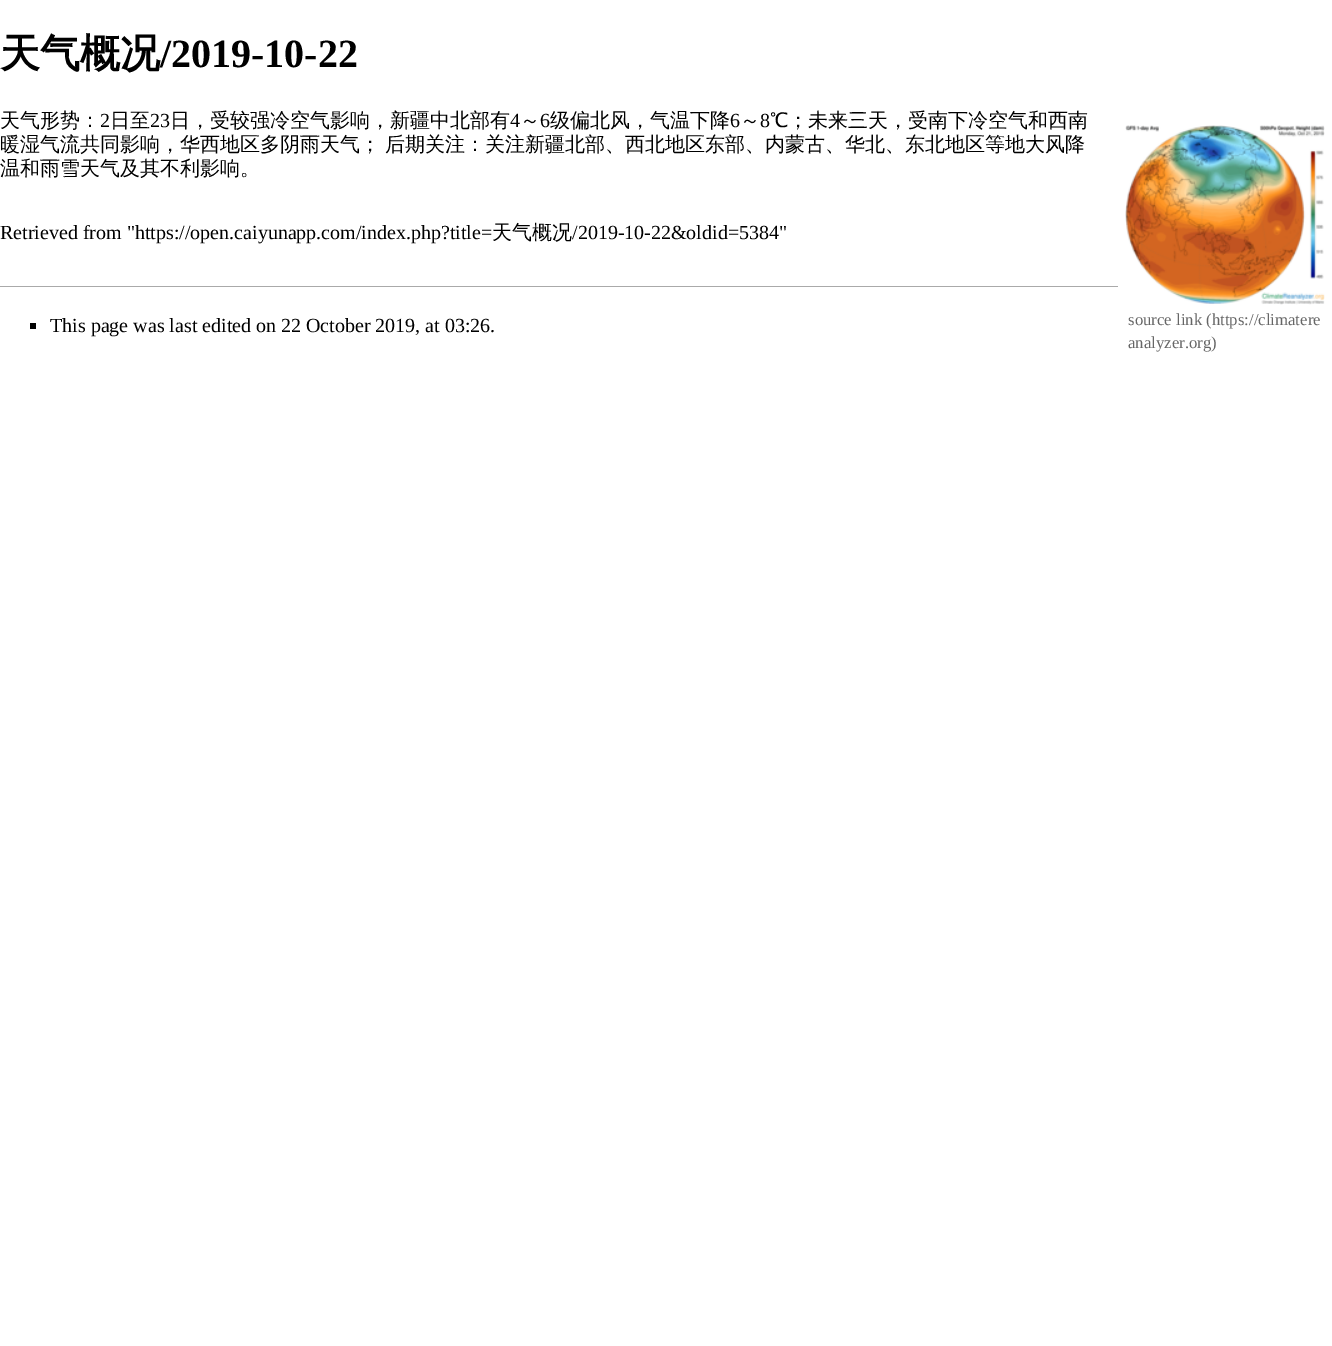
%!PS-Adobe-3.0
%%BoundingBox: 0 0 1332 1346
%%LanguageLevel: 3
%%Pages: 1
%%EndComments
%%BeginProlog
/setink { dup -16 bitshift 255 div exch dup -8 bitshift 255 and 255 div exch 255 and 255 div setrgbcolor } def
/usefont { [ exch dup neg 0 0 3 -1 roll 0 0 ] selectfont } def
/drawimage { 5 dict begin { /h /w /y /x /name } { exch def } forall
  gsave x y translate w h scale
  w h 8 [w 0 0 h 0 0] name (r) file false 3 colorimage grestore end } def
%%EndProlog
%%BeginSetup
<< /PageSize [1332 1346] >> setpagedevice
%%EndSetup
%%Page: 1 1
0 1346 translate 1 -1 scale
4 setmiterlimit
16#FFFFFF setink
0 0 1332 1346 rectfill
/WenQuanYiZenHei-Bold 40 usefont
16#000000 setink
0 67 moveto (天气概况) show
/LiberationSerif-Bold 40 usefont
160 67 moveto (/2019-10-22) show
/WenQuanYiZenHei-Medium 20 usefont
0 127 moveto (天气形势：) show
/LiberationSerif-Regular 20 usefont
100 127 moveto (2) show
/WenQuanYiZenHei-Medium 20 usefont
110 127 moveto (日至) show
/LiberationSerif-Regular 20 usefont
150 127 moveto (23) show
/WenQuanYiZenHei-Medium 20 usefont
170 127 moveto (日，受较强冷空气影响，新疆中北部有) show
/LiberationSerif-Regular 20 usefont
510 127 moveto (4) show
/WenQuanYiZenHei-Medium 20 usefont
520 127 moveto (～) show
/LiberationSerif-Regular 20 usefont
540 127 moveto (6) show
/WenQuanYiZenHei-Medium 20 usefont
550 127 moveto (级偏北风，气温下降) show
/LiberationSerif-Regular 20 usefont
730 127 moveto (6) show
/WenQuanYiZenHei-Medium 20 usefont
740 127 moveto (～) show
/LiberationSerif-Regular 20 usefont
760 127 moveto (8) show
/WenQuanYiZenHei-Medium 20 usefont
770 127 moveto (℃；未来三天，受南下冷空气和西南) show
0 151 moveto -1 0 32 (暖湿气流共同影响，华西地区多阴雨天气； 后期关注：关注新疆北部、西北地区东部、内蒙古、华北、东北地区等地大风降) widthshow
0 175 moveto (温和雨雪天气及其不利影响。) show
(img1.raw) 1125 125 200 180 drawimage
/LiberationSerif-Regular 16.75 usefont
16#666666 setink
1128 325 moveto (source link \(https://climatere) show
1128 348 moveto (analyzer.org\)) show
/LiberationSerif-Regular 20 usefont
16#000000 setink
0 239 moveto (Retrieved from "https://open.caiyunapp.com/index.php?title=) show
/WenQuanYiZenHei-Medium 20 usefont
492 239 moveto (天气概况) show
/LiberationSerif-Regular 20 usefont
572 239 moveto (/2019-10-22&oldid=5384") show
16#AAAAAA setink
0 286 1118 1 rectfill
16#000000 setink
30 323 6 6 rectfill
50 332 moveto (This page was last edited on 22 October 2019, at 03:26.) show
showpage
%%EOF
